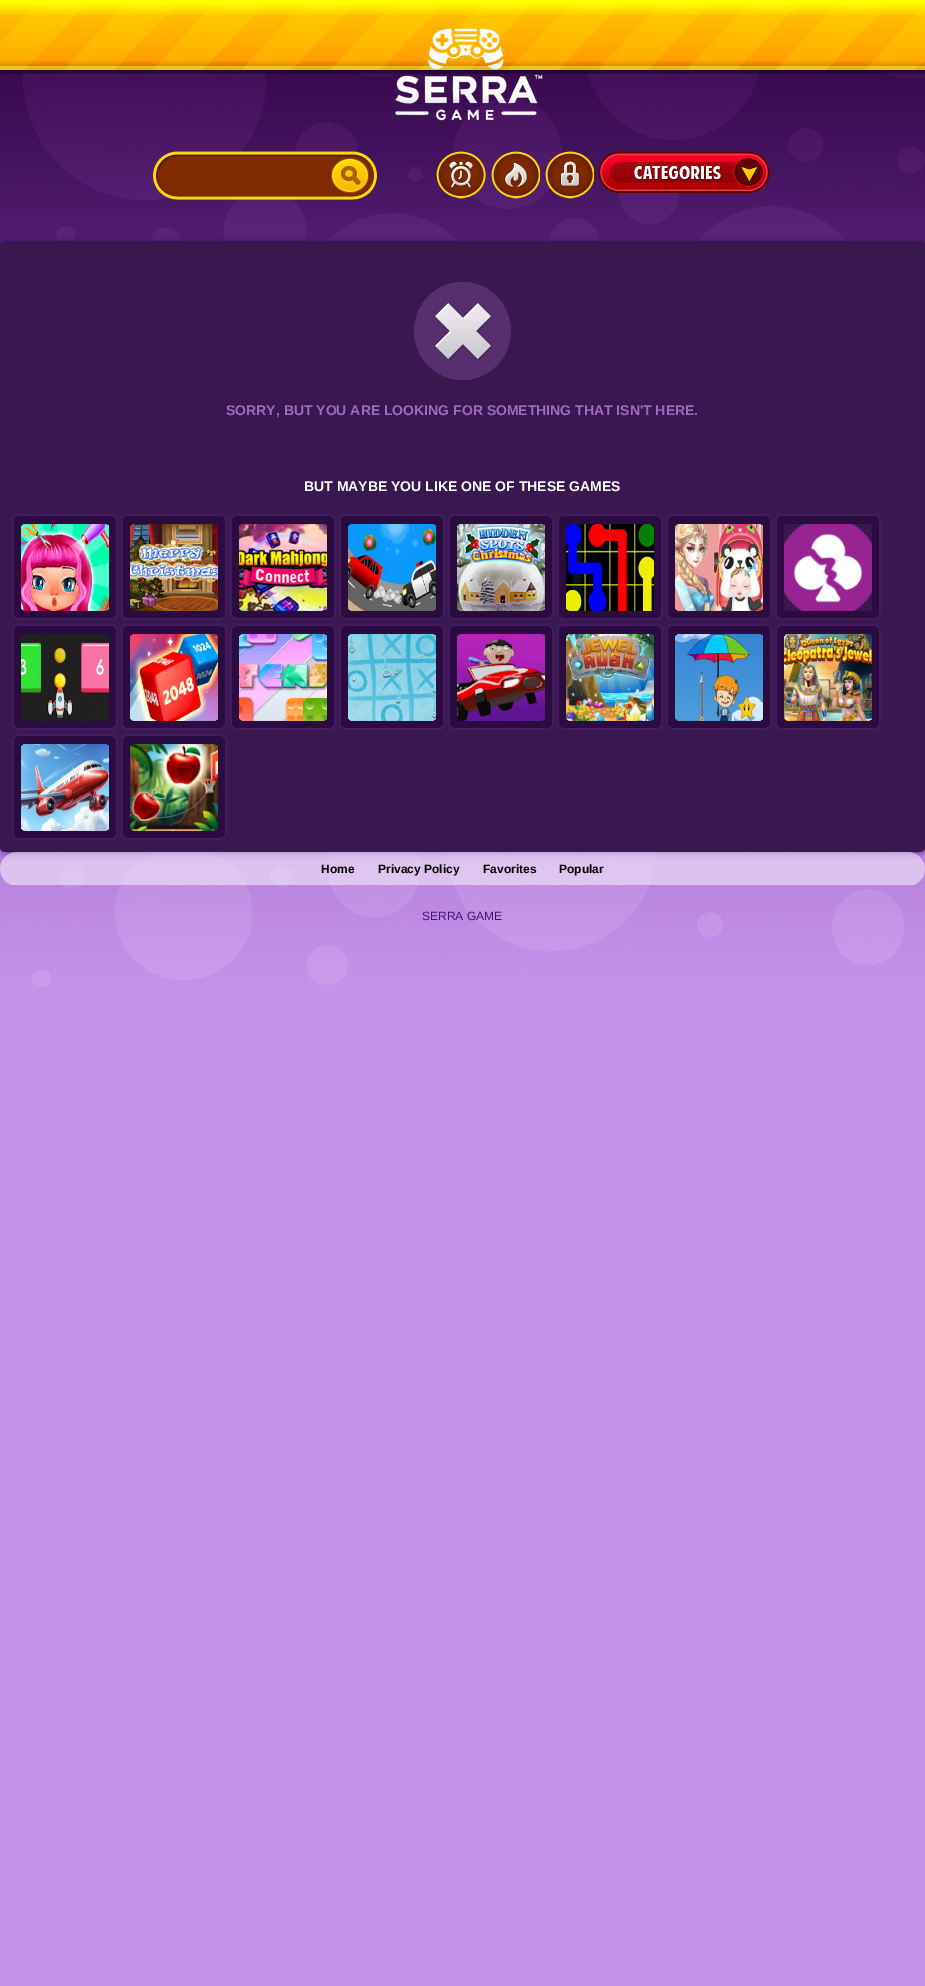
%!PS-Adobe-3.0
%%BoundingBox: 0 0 925 1986
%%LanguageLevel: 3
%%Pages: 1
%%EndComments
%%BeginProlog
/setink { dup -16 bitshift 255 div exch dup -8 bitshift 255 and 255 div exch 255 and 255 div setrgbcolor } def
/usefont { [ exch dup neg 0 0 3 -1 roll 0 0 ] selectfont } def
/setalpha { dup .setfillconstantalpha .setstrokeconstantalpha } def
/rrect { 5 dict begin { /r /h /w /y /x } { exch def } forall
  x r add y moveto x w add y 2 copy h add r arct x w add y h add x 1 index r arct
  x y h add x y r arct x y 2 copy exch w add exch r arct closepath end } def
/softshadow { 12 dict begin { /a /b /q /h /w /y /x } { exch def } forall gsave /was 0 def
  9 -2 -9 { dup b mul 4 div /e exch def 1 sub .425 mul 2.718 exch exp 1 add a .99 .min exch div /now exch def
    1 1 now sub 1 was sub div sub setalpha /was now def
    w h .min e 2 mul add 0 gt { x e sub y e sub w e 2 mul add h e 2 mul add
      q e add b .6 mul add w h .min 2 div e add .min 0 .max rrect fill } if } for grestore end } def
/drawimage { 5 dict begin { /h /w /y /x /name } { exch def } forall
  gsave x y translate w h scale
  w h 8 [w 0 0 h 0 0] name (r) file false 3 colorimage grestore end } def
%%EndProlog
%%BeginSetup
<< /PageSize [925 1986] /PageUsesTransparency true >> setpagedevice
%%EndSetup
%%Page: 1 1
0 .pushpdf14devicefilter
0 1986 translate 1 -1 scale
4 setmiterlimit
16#C592EA setink
0 0 925 1986 rectfill
(img1.raw) 0 70 925 921 drawimage
(img2.raw) 0 0 925 74 drawimage
(img3.raw) 395 25 148 96 drawimage
(img4.raw) 153 151 224 49 drawimage
(img5.raw) 436 151 50 48 drawimage
(img6.raw) 491 151 49 48 drawimage
(img7.raw) 545 151 49 48 drawimage
(img8.raw) 598 151 172 42 drawimage
16#4A1071 setink
0 241 925 611 5 4 1 softshadow
16#39184F setink
0 241 925 611 5 rrect fill
(img9.raw) 414 282 97 98 drawimage
/LiberationSans-Bold 14 usefont
16#9E6AC1 setink
226 415 moveto (SORRY, BUT YOU ARE LOOKING FOR SOMETHING THAT ISN'T HERE.) show
16#FFFFFF setink
304 491 moveto (BUT MAYBE YOU LIKE ONE OF THESE GAMES) show
(img11.raw) 21 524 88 87 drawimage
(img10.raw) 11 513 108 108 drawimage
(img13.raw) 130 524 88 87 drawimage
(img12.raw) 120 513 108 108 drawimage
(img15.raw) 239 524 88 87 drawimage
(img14.raw) 229 513 108 108 drawimage
(img17.raw) 348 524 88 87 drawimage
(img16.raw) 338 513 108 108 drawimage
(img19.raw) 457 524 88 87 drawimage
(img18.raw) 447 513 108 108 drawimage
(img21.raw) 566 524 88 87 drawimage
(img20.raw) 556 513 108 108 drawimage
(img23.raw) 675 524 88 87 drawimage
(img22.raw) 665 513 108 108 drawimage
(img25.raw) 784 524 88 87 drawimage
(img24.raw) 774 513 108 108 drawimage
(img27.raw) 21 634 88 87 drawimage
(img26.raw) 11 623 108 108 drawimage
(img29.raw) 130 634 88 87 drawimage
(img28.raw) 120 623 108 108 drawimage
(img31.raw) 239 634 88 87 drawimage
(img30.raw) 229 623 108 108 drawimage
(img33.raw) 348 634 88 87 drawimage
(img32.raw) 338 623 108 108 drawimage
(img35.raw) 457 634 88 87 drawimage
(img34.raw) 447 623 108 108 drawimage
(img37.raw) 566 634 88 87 drawimage
(img36.raw) 556 623 108 108 drawimage
(img39.raw) 675 634 88 87 drawimage
(img38.raw) 665 623 108 108 drawimage
(img41.raw) 784 634 88 87 drawimage
(img40.raw) 774 623 108 108 drawimage
(img43.raw) 21 744 88 87 drawimage
(img42.raw) 11 733 108 108 drawimage
(img45.raw) 130 744 88 87 drawimage
(img44.raw) 120 733 108 108 drawimage
(img46.raw) 0 852 925 33 drawimage
/LiberationSans-Bold 12 usefont
16#000000 setink
[
    [(Home) 321 873]
    [(Privacy Policy) 378 873]
    [(Favorites) 483 873]
    [(Popular) 559 873]
] { aload pop moveto show } forall
/LiberationSans-Regular 12 usefont
16#491171 setink
422 920 moveto (SERRA GAME) show
.poppdf14devicefilter showpage
%%EOF
